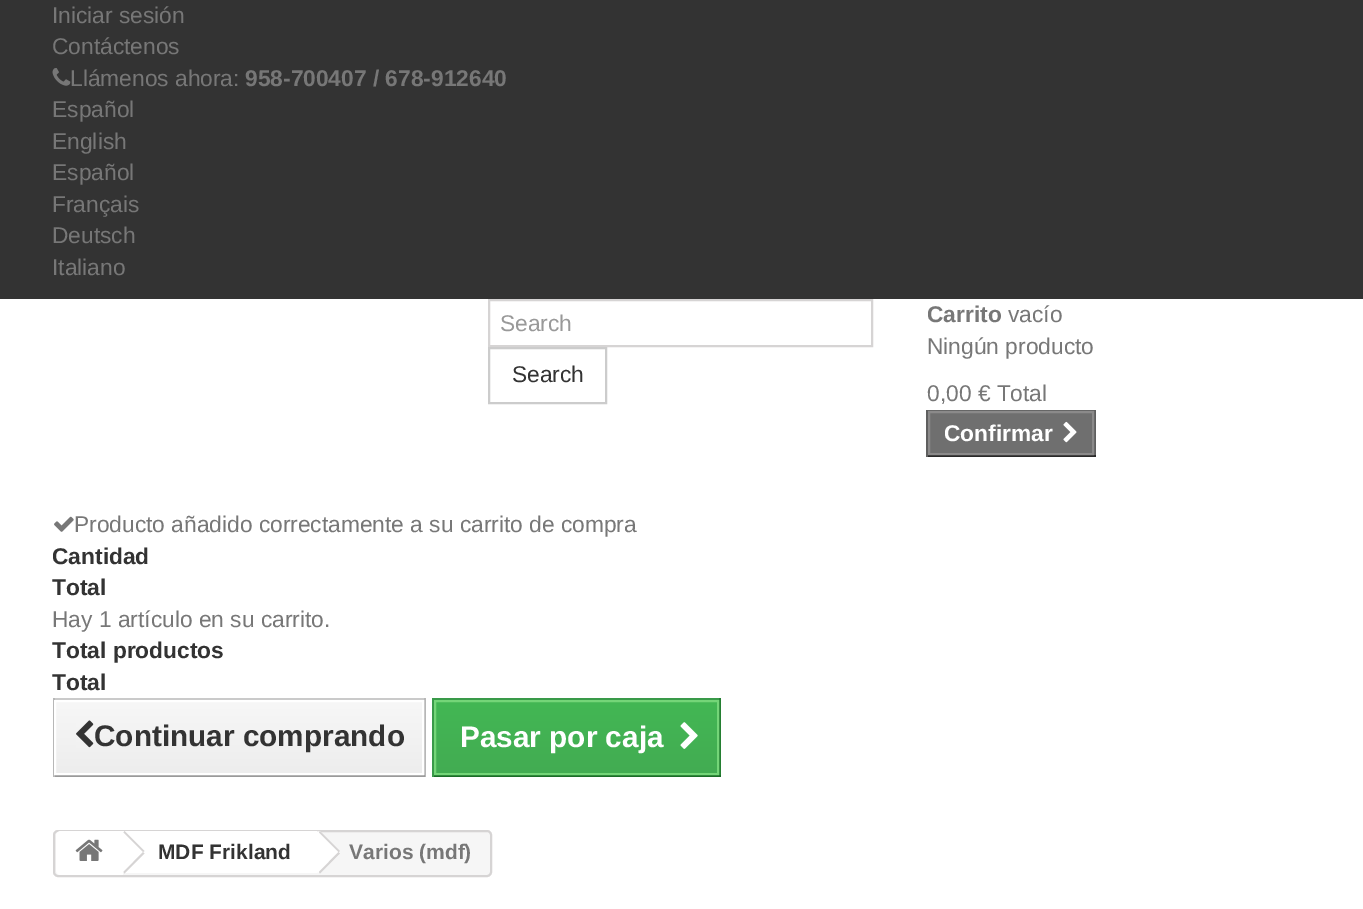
%!PS-Adobe-3.0
%%BoundingBox: 0 0 1363 909
%%LanguageLevel: 3
%%Pages: 1
%%EndComments
%%BeginProlog
/setink { dup -16 bitshift 255 div exch dup -8 bitshift 255 and 255 div exch 255 and 255 div setrgbcolor } def
/usefont { [ exch dup neg 0 0 3 -1 roll 0 0 ] selectfont } def
/rrect { 5 dict begin { /r /h /w /y /x } { exch def } forall
  x r add y moveto x w add y 2 copy h add r arct x w add y h add x 1 index r arct
  x y h add x y r arct x y 2 copy exch w add exch r arct closepath end } def
/drawimage { 5 dict begin { /h /w /y /x /name } { exch def } forall
  gsave x y translate w h scale
  w h 8 [w 0 0 h 0 0] name (r) file false 3 colorimage grestore end } def
%%EndProlog
%%BeginSetup
<< /PageSize [1363 909] >> setpagedevice
%%EndSetup
%%Page: 1 1
0 909 translate 1 -1 scale
4 setmiterlimit
16#FFFFFF setink
0 0 1363 909 rectfill
16#333333 setink
0 0 1363 299 rectfill
/LiberationSans-Regular 22.75 usefont
16#777777 setink
52 23 moveto (Iniciar sesión) show
52 54 moveto (Contáctenos) show
(img1.raw) 52 68 19 18 drawimage
70 86 moveto (Llámenos ahora:) show
/LiberationSans-Bold 22.75 usefont
245 86 moveto (958-700407 / 678-912640) show
/LiberationSans-Regular 22.75 usefont
[
    [(Español) 52 117]
    [(English) 52 149]
    [(Español) 52 180]
    [(Français) 52 212]
    [(Deutsch) 52 243]
    [(Italiano) 52 275]
] { aload pop moveto show } forall
16#D6D4D4 setink
2 setlinewidth
489 300 383 46 rectstroke
16#999999 setink
500 331 moveto (Search) show
16#CCCCCC setink
489 348 117 55 rectstroke
16#333333 setink
512 382 moveto (Search) show
/LiberationSans-Bold 22.75 usefont
16#777777 setink
927 322 moveto (Carrito) show
/LiberationSans-Regular 22.75 usefont
[
    [(vacío) 1008 322]
    [(Ningún producto) 927 354]
    [(0,00 € Total) 927 401]
] { aload pop moveto show } forall
[
    [926 410 170 1 16#666666]
    [1094 410 2 47 16#5F5F5F]
    [926 455 170 2 16#292929]
    [926 410 2 47 16#5F5F5F]
] { aload pop setink rectfill } forall
16#6F6F6F setink
929 412 moveto 1093 412 lineto 1093 454 lineto 929 454 lineto closepath gsave fill grestore
16#8B8A8A setink
stroke
/LiberationSans-Bold 22.75 usefont
16#FFFFFF setink
944 441 moveto (Confirmar) show
(img2.raw) 1063 421 14 22 drawimage
(img3.raw) 54 516 20 16 drawimage
/LiberationSans-Regular 22.75 usefont
16#777777 setink
74 532 moveto (Producto añadido correctamente a su carrito de compra) show
/LiberationSans-Bold 22.75 usefont
16#333333 setink
52 564 moveto (Cantidad) show
52 595 moveto (Total) show
/LiberationSans-Regular 22.75 usefont
16#777777 setink
52 627 moveto (Hay 1 artículo en su carrito.) show
/LiberationSans-Bold 22.75 usefont
16#333333 setink
52 658 moveto (Total productos) show
52 690 moveto (Total) show
[
    [53 698 372 2 16#CACACA]
    [424 698 2 79 16#B7B7B7]
    [53 775 372 2 16#9A9A9A]
    [53 698 2 79 16#B7B7B7]
] { aload pop setink rectfill } forall
gsave 56 702 moveto 422 702 lineto 422 773 lineto 56 773 lineto closepath clip newpath
<< /ShadingType 2 /ColorSpace /DeviceRGB /Coords [239 702 239 774] /Extend [true true] /Function << /FunctionType 2 /Domain [0 1] /C0 [0.969 0.969 0.969] /C1 [0.929 0.929 0.929] /N 1 >> >> shfill grestore
16#FFFFFF setink
55 701 368 73 rectstroke
(img4.raw) 76 720 18 28 drawimage
/LiberationSans-Bold 29.75 usefont
16#333333 setink
94 746 moveto (Continuar comprando) show
gsave 436 702 moveto 717 702 lineto 717 773 lineto 436 773 lineto closepath clip newpath
<< /ShadingType 2 /ColorSpace /DeviceRGB /Coords [577 700 577 775] /Extend [true true] /Function << /FunctionType 2 /Domain [0 1] /C0 [0.263 0.718 0.329] /C1 [0.259 0.675 0.322] /N 1 >> >> shfill grestore
[
    [432 698 289 2 16#399A49]
    [719 698 2 79 16#247F32]
    [432 775 289 2 16#1A6D27]
    [432 698 2 79 16#399A49]
] { aload pop setink rectfill } forall
16#74D578 setink
435 701 283 73 rectstroke
16#FFFFFF setink
460 747 moveto (Pasar por caja) show
(img5.raw) 680 722 18 27 drawimage
16#F6F6F6 setink
54 831 437 45 4 rrect gsave fill grestore
16#D6D4D4 setink
stroke
16#FFFFFF setink
61 831 moveto 123 831 lineto 123 875 lineto 61 875 lineto 58 875 56 873 56 870 curveto 56 836 lineto 56 833 58 831 61 831 curveto closepath fill
(img6.raw) 75 839 28 22 drawimage
123 831 194 42 rectfill
16#D6D4D4 setink
124.5 831 moveto 144.5 851 lineto 143 852 lineto 123.5 832.5 lineto closepath 143 852 moveto 144.5 853.5 lineto 124.5 873.5 lineto 123.5 872 lineto closepath fill
/LiberationSans-Bold 21 usefont
16#333333 setink
158 859 moveto (MDF Frikland) show
16#FFFFFF setink
321 832 moveto 339 850 lineto 340 851 340 853 339 855 curveto 321 872 lineto 320 873 318 873 316 872 curveto 299 855 lineto 298 853 298 851 299 850 curveto 316 832 lineto 318 831 320 831 321 832 curveto closepath fill
16#D6D4D4 setink
320 831 moveto 340 851 lineto 338.5 852 lineto 319 832.5 lineto closepath 338.5 852 moveto 340 853.5 lineto 320 873.5 lineto 319 872 lineto closepath fill
16#777777 setink
349 859 moveto (Varios \(mdf\)) show
showpage
%%EOF
